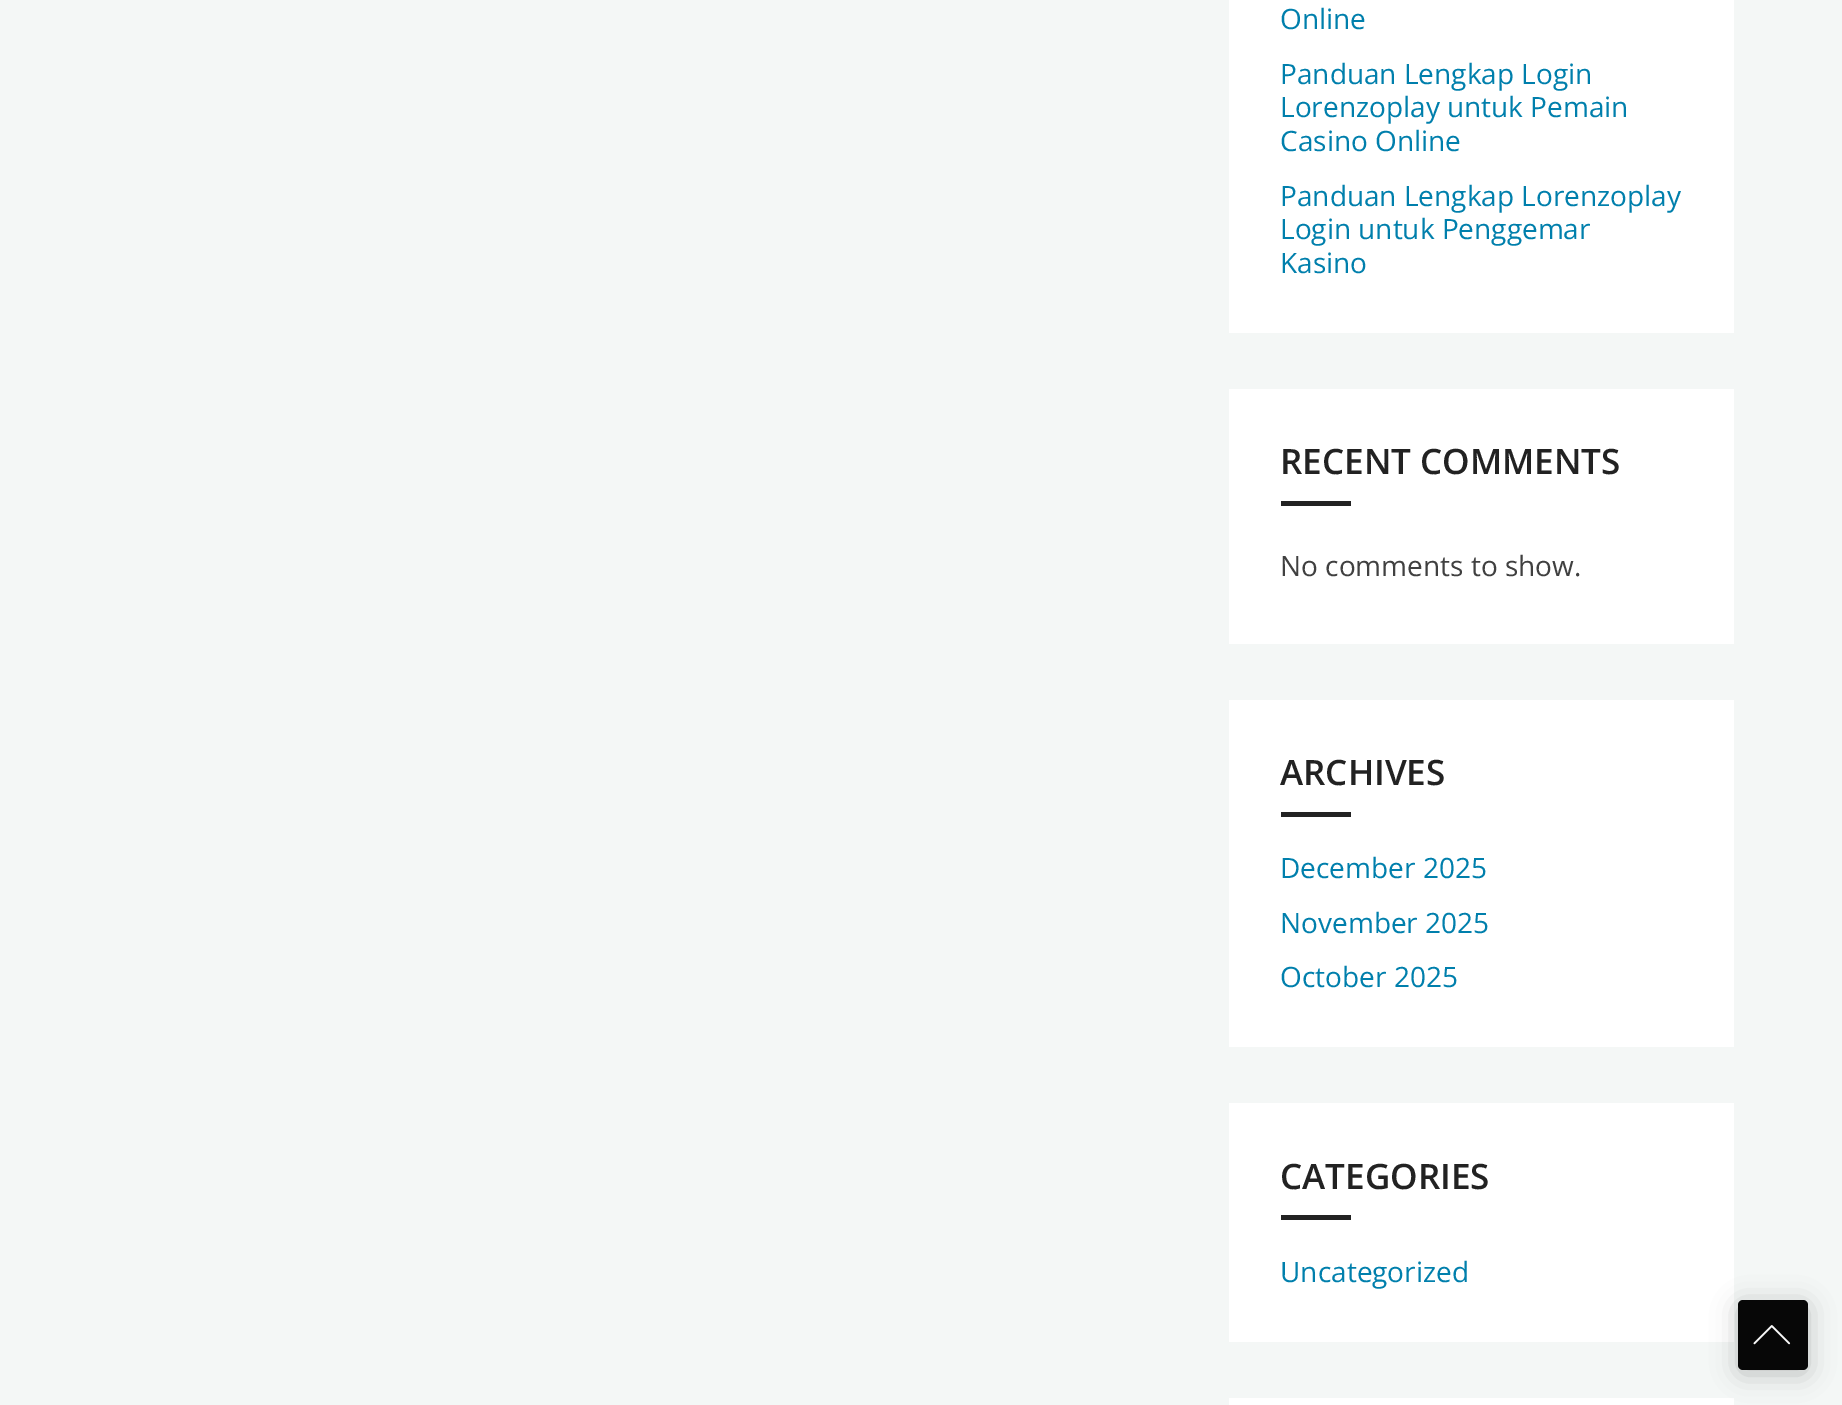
%!PS-Adobe-3.0
%%BoundingBox: 0 0 1842 1405
%%LanguageLevel: 3
%%Pages: 1
%%EndComments
%%BeginProlog
/setink { dup -16 bitshift 255 div exch dup -8 bitshift 255 and 255 div exch 255 and 255 div setrgbcolor } def
/usefont { [ exch dup neg 0 0 3 -1 roll 0 0 ] selectfont } def
/setalpha { dup .setfillconstantalpha .setstrokeconstantalpha } def
/rrect { 5 dict begin { /r /h /w /y /x } { exch def } forall
  x r add y moveto x w add y 2 copy h add r arct x w add y h add x 1 index r arct
  x y h add x y r arct x y 2 copy exch w add exch r arct closepath end } def
/softshadow { 12 dict begin { /a /b /q /h /w /y /x } { exch def } forall gsave /was 0 def
  9 -2 -9 { dup b mul 4 div /e exch def 1 sub .425 mul 2.718 exch exp 1 add a .99 .min exch div /now exch def
    1 1 now sub 1 was sub div sub setalpha /was now def
    w h .min e 2 mul add 0 gt { x e sub y e sub w e 2 mul add h e 2 mul add
      q e add b .6 mul add w h .min 2 div e add .min 0 .max rrect fill } if } for grestore end } def
/drawimage { 5 dict begin { /h /w /y /x /name } { exch def } forall
  gsave x y translate w h scale
  w h 8 [w 0 0 h 0 0] name (r) file false 3 colorimage grestore end } def
%%EndProlog
%%BeginSetup
<< /PageSize [1842 1405] /PageUsesTransparency true >> setpagedevice
%%EndSetup
%%Page: 1 1
0 .pushpdf14devicefilter
0 1405 translate 1 -1 scale
4 setmiterlimit
16#F4F7F6 setink
0 0 1842 1405 rectfill
16#FFFFFF setink
1229 0 505 333 rectfill
/OpenSans-Regular 28 usefont
16#007FAC setink
[
    [(Online) 1280 29]
    [(Panduan Lengkap Login) 1280 84]
    [(Lorenzoplay untuk Pemain) 1280 117]
    [(Casino Online) 1280 151]
    [(Panduan Lengkap Lorenzoplay) 1280 206]
    [(Login untuk Penggemar) 1280 239]
    [(Kasino) 1280 273]
] { aload pop moveto show } forall
16#FFFFFF setink
1229 389 505 255 rectfill
/OpenSans-SemiBold 35 usefont
16#222222 setink
1280 474 moveto (RECENT COMMENTS) show
1281 501 70 5 rectfill
/OpenSans-Regular 28 usefont
16#404040 setink
1280 576 moveto (No comments to show.) show
16#FFFFFF setink
1229 700 505 347 rectfill
/OpenSans-SemiBold 35 usefont
16#222222 setink
1280 785 moveto (ARCHIVES) show
1281 812 70 5 rectfill
/OpenSans-Regular 28 usefont
16#007FAC setink
[
    [(December 2025) 1280 878]
    [(November 2025) 1280 933]
    [(October 2025) 1280 987]
] { aload pop moveto show } forall
16#FFFFFF setink
1229 1103 505 239 rectfill
/OpenSans-SemiBold 35 usefont
16#222222 setink
1280 1189 moveto (CATEGORIES) show
1281 1215 70 5 rectfill
/OpenSans-Regular 28 usefont
16#007FAC setink
1280 1282 moveto (Uncategorized) show
16#FFFFFF setink
1229 1398 505 7 rectfill
16#000000 setink
1738 1304 70 70 5 13 0.24 softshadow
16#070707 setink
1738 1300 70 70 5 rrect fill
(img1.raw) 1753 1325 38 20 drawimage
.poppdf14devicefilter showpage
%%EOF
